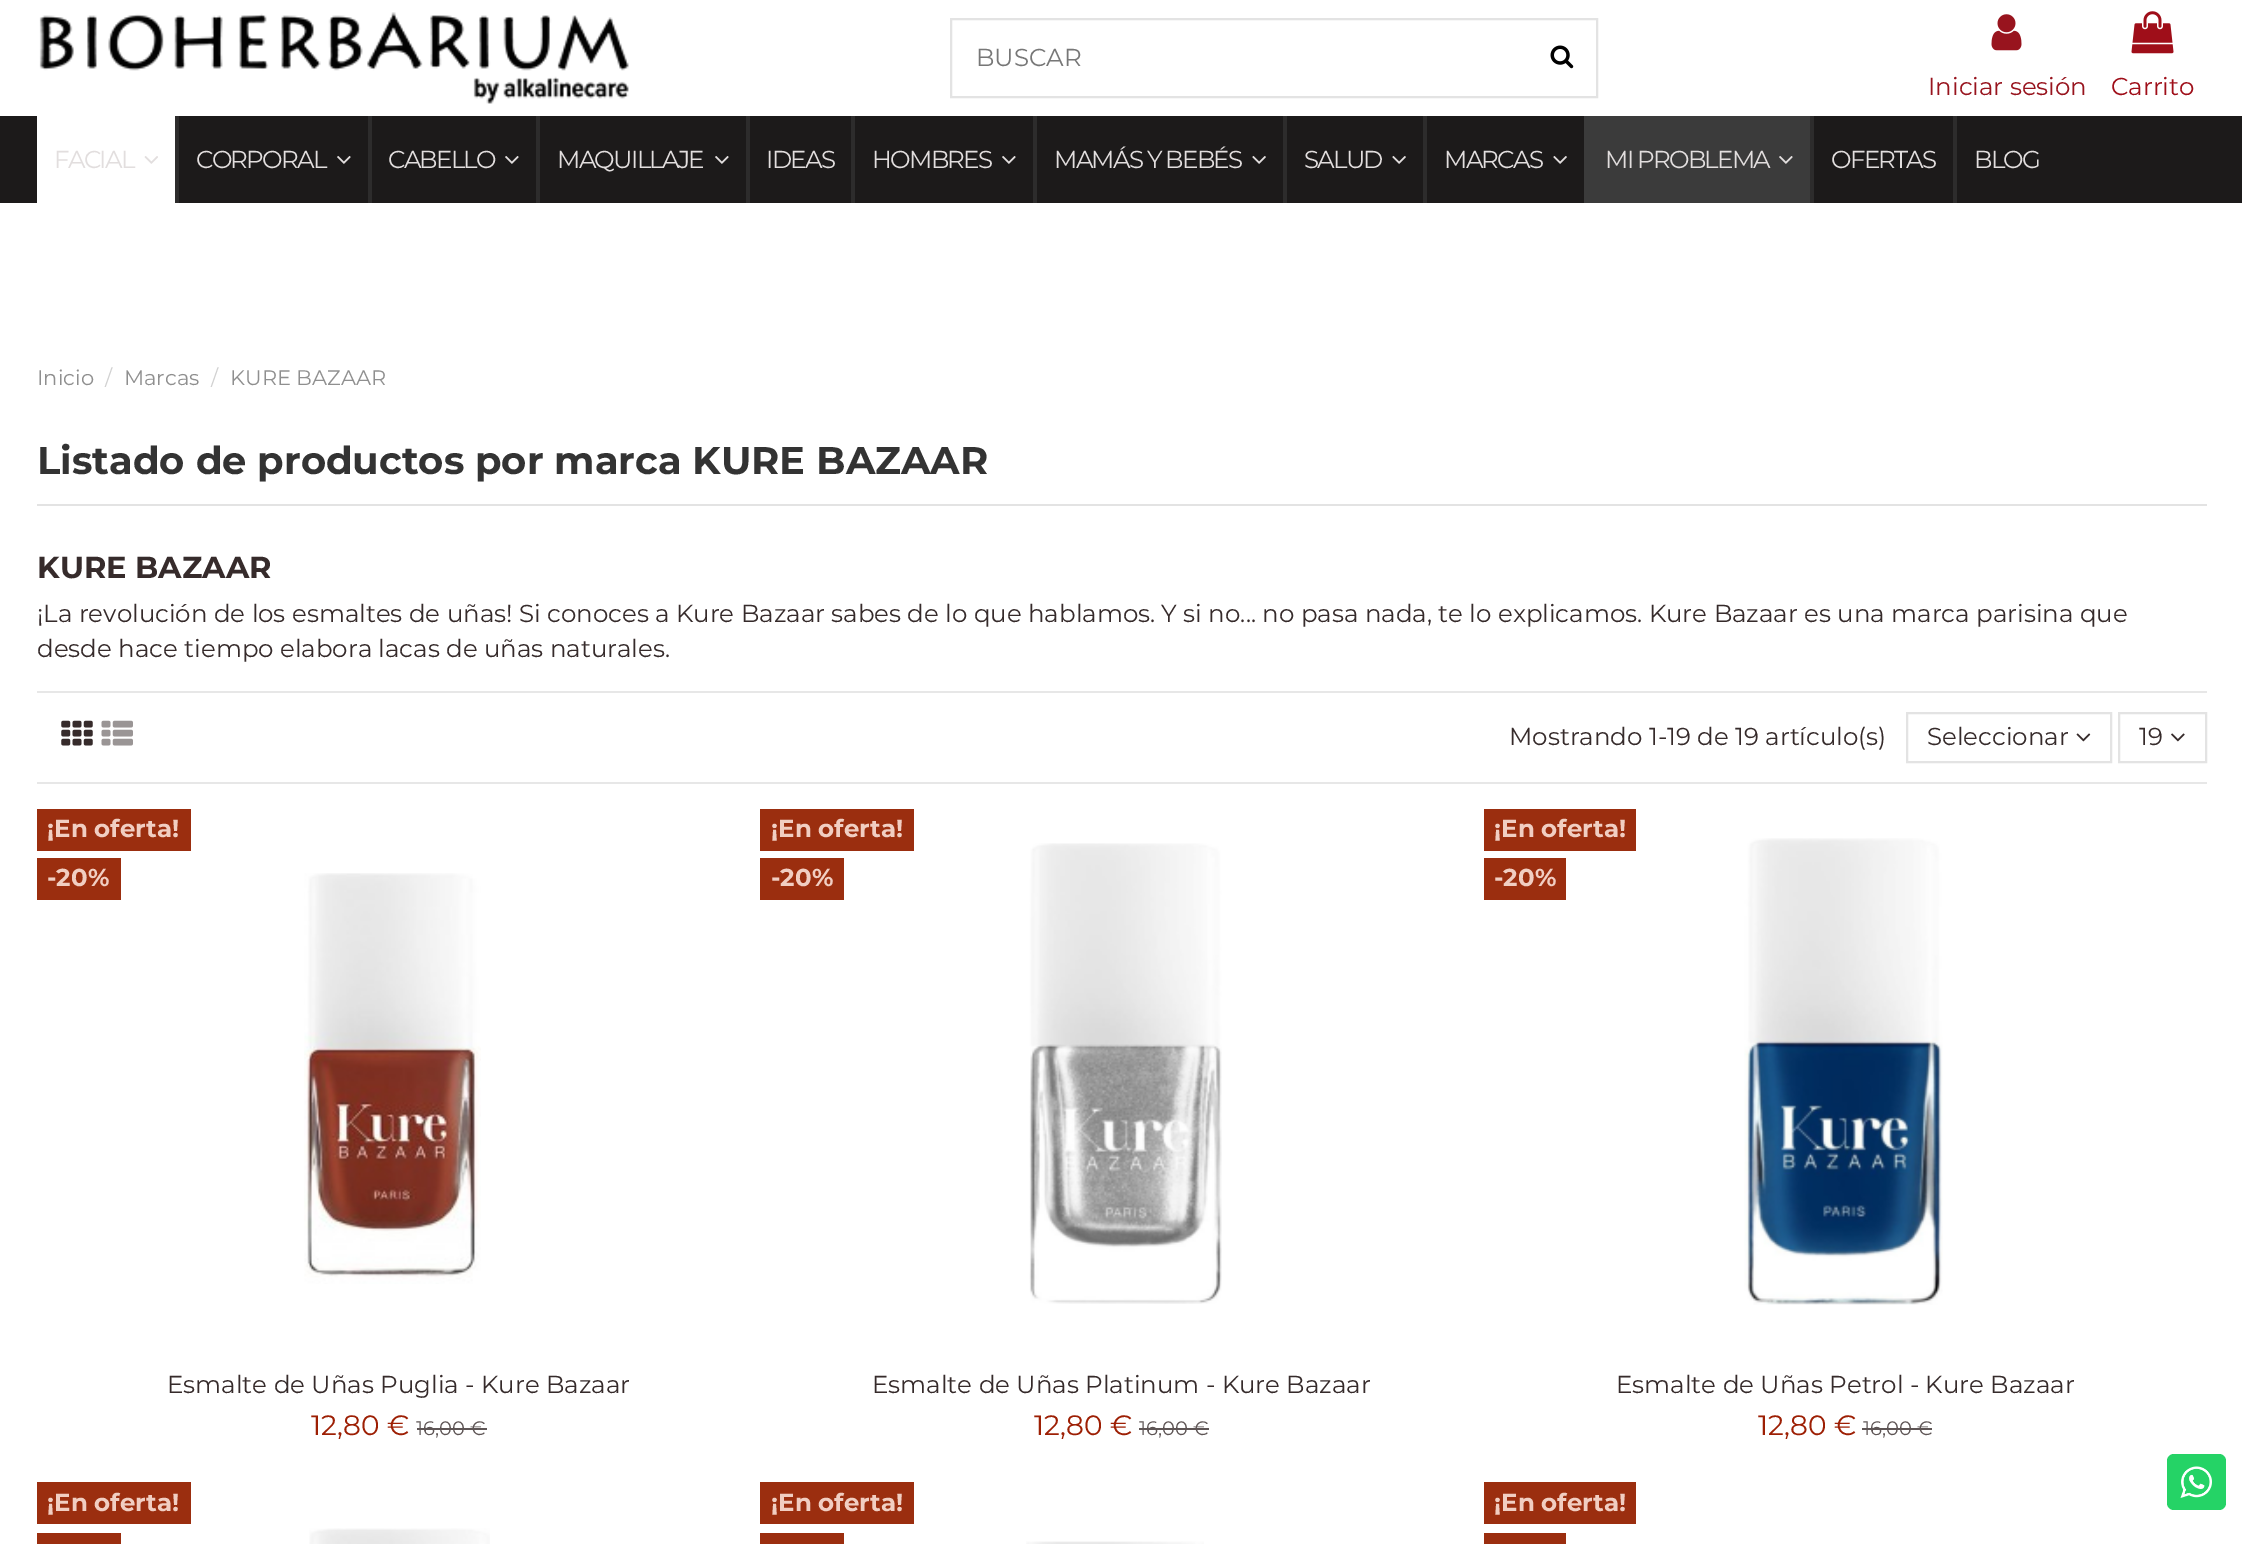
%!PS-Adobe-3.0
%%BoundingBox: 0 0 2242 1544
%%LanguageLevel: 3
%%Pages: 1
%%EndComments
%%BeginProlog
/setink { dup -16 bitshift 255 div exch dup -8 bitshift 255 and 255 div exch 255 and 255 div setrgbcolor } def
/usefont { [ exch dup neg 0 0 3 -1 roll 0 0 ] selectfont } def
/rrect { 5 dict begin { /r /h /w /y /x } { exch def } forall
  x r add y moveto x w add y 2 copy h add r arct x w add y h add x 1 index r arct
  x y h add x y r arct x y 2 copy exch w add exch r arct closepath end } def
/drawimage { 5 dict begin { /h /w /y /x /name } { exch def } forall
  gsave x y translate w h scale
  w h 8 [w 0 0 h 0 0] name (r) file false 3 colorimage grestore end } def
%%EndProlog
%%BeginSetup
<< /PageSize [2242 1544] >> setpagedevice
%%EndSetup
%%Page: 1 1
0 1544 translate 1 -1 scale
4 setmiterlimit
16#FFFFFF setink
0 0 2242 1544 rectfill
(img1.raw) 39 12 590 92 drawimage
16#E3E3E3 setink
2 setlinewidth
951 19 646 78 rectstroke
/Montserrat-Regular 24.5 usefont
16#777777 setink
976 66 moveto (BUSCAR) show
(img2.raw) 1550 45 24 24 drawimage
(img3.raw) 1991 14 31 37 drawimage
16#98141E setink
1928 95 moveto (Iniciar sesión) show
(img4.raw) 2131 11 43 43 drawimage
16#9F0E19 setink
2111 95 moveto (Carrito) show
16#1C1A1A setink
0 116 2242 87 rectfill
16#FFFFFF setink
37 116 138 87 rectfill
16#E2DEDE setink
54 168 moveto -1.75 0 (FACIAL) ashow
(img5.raw) 144 156 14 8 drawimage
16#2D2C2C setink
175 116 4 87 rectfill
16#E2DEDE setink
196 168 moveto -1.75 0 (CORPORAL) ashow
(img6.raw) 337 156 14 8 drawimage
16#2D2C2C setink
368 116 4 87 rectfill
16#E2DEDE setink
388 168 moveto -1.75 0 (CABELLO) ashow
(img6.raw) 505 156 14 8 drawimage
16#2D2C2C setink
536 116 4 87 rectfill
16#E2DEDE setink
557 168 moveto -1.75 0 (MAQUILLAJE) ashow
(img6.raw) 715 156 14 8 drawimage
16#2D2C2C setink
746 116 4 87 rectfill
16#E2DEDE setink
766 168 moveto -1.75 0 (IDEAS) ashow
16#2D2C2C setink
851 116 4 87 rectfill
16#E2DEDE setink
872 168 moveto -1.75 0 (HOMBRES) ashow
(img6.raw) 1002 156 14 8 drawimage
16#2D2C2C setink
1033 116 4 87 rectfill
16#E2DEDE setink
1054 168 moveto -1.75 0 (MAMÁS Y BEBÉS) ashow
(img7.raw) 1252 156 14 8 drawimage
16#2D2C2C setink
1283 116 4 87 rectfill
16#E2DEDE setink
1304 168 moveto -1.75 0 (SALUD) ashow
(img7.raw) 1392 156 14 8 drawimage
16#2D2C2C setink
1423 116 4 87 rectfill
16#E2DEDE setink
1444 168 moveto -1.75 0 (MARCAS) ashow
(img7.raw) 1553 156 14 8 drawimage
16#3B3B3B setink
1584 116 226 87 rectfill
16#E2DEDE setink
1605 168 moveto -1.75 0 (MI PROBLEMA) ashow
(img8.raw) 1779 156 14 8 drawimage
16#2D2C2C setink
1810 116 4 87 rectfill
16#E2DEDE setink
1831 168 moveto -1.75 0 (OFERTAS) ashow
16#2D2C2C setink
1953 116 4 87 rectfill
16#E2DEDE setink
1974 168 moveto -1.75 0 (BLOG) ashow
/Montserrat-Regular 21 usefont
16#8F8F8F setink
37 385 moveto (Inicio) show
16#D2D2D2 setink
105 385 moveto (/) show
16#8F8F8F setink
124 385 moveto (Marcas) show
16#D2D2D2 setink
211 385 moveto (/) show
16#8F8F8F setink
230 385 moveto (KURE BAZAAR) show
16#E3E3E3 setink
37 504 2170 2 rectfill
/Montserrat-Bold 38.5 usefont
16#333333 setink
37 474 moveto (Listado de productos por marca KURE BAZAAR) show
/Montserrat-Bold 30.5 usefont
16#362B2B setink
37 578 moveto (KURE BAZAAR) show
/Montserrat-Regular 24.5 usefont
37 622 moveto (¡La revolución de los esmaltes de uñas! Si conoces a Kure Bazaar sabes de lo que hablamos. Y si no... no pasa nada, te lo explicamos. Kure Bazaar es una marca parisina que) show
37 657 moveto (desde hace tiempo elabora lacas de uñas naturales.) show
16#E7E7E7 setink
37 691 2170 2 rectfill
37 782 2170 2 rectfill
(img9.raw) 61 720 32 26 drawimage
(img10.raw) 101 720 32 26 drawimage
16#362B2B setink
1509 745 moveto (Mostrando 1-19 de 19 artículo\(s\)) show
16#E3E3E3 setink
1907 713 204 49 rectstroke
16#362B2B setink
1927 745 moveto (Seleccionar) show
(img11.raw) 2076 733 15 9 drawimage
16#E3E3E3 setink
2119 713 87 49 rectstroke
16#362B2B setink
2139 745 moveto (19) show
(img12.raw) 2171 733 14 9 drawimage
16#9B2E0F setink
37 809 154 42 rectfill
/Montserrat-Bold 24.5 usefont
16#F1CEC2 setink
47 837 moveto (¡En oferta!) show
16#9B2E0F setink
37 858 84 42 rectfill
16#F1CEC2 setink
47 886 moveto (-20%) show
(img13.raw) 304 873 177 411 drawimage
/Montserrat-Regular 24.5 usefont
16#362B2B setink
167 1393 moveto (Esmalte de Uñas Puglia - Kure Bazaar) show
/Montserrat-Regular 28 usefont
16#9D1F04 setink
311 1435 moveto (12,80 €) show
/Montserrat-Regular 19.5 usefont
16#5E5555 setink
416 1435 moveto (16,00 €) show
417 1428 70 2 rectfill
16#9B2E0F setink
760 809 154 42 rectfill
/Montserrat-Bold 24.5 usefont
16#F1CEC2 setink
771 837 moveto (¡En oferta!) show
16#9B2E0F setink
760 858 84 42 rectfill
16#F1CEC2 setink
771 886 moveto (-20%) show
(img14.raw) 1029 843 193 461 drawimage
/Montserrat-Regular 24.5 usefont
16#362B2B setink
872 1393 moveto (Esmalte de Uñas Platinum - Kure Bazaar) show
/Montserrat-Regular 28 usefont
16#9D1F04 setink
1034 1435 moveto (12,80 €) show
/Montserrat-Regular 19.5 usefont
16#5E5555 setink
1139 1435 moveto (16,00 €) show
1139 1428 70 2 rectfill
16#9B2E0F setink
1484 809 152 42 rectfill
/Montserrat-Bold 24.5 usefont
16#F1CEC2 setink
1494 837 moveto (¡En oferta!) show
16#9B2E0F setink
1484 858 82 42 rectfill
16#F1CEC2 setink
1494 886 moveto (-20%) show
(img15.raw) 1744 838 199 467 drawimage
/Montserrat-Regular 24.5 usefont
16#362B2B setink
1616 1393 moveto (Esmalte de Uñas Petrol - Kure Bazaar) show
/Montserrat-Regular 28 usefont
16#9D1F04 setink
1758 1435 moveto (12,80 €) show
/Montserrat-Regular 19.5 usefont
16#5E5555 setink
1863 1435 moveto (16,00 €) show
1862 1428 70 2 rectfill
16#9B2E0F setink
37 1482 154 42 rectfill
/Montserrat-Bold 24.5 usefont
16#F1CEC2 setink
47 1511 moveto (¡En oferta!) show
16#9B2E0F setink
37 1533 84 11 rectfill
(img16.raw) 309 1528 181 16 drawimage
760 1482 154 42 rectfill
16#F1CEC2 setink
771 1511 moveto (¡En oferta!) show
16#9B2E0F setink
760 1533 84 11 rectfill
(img17.raw) 1026 1541 178 3 drawimage
1484 1482 152 42 rectfill
16#F1CEC2 setink
1494 1511 moveto (¡En oferta!) show
16#9B2E0F setink
1484 1533 82 11 rectfill
16#25D366 setink
2167 1454 59 56 7 rrect fill
(img18.raw) 2180 1466 32 32 drawimage
showpage
%%EOF
